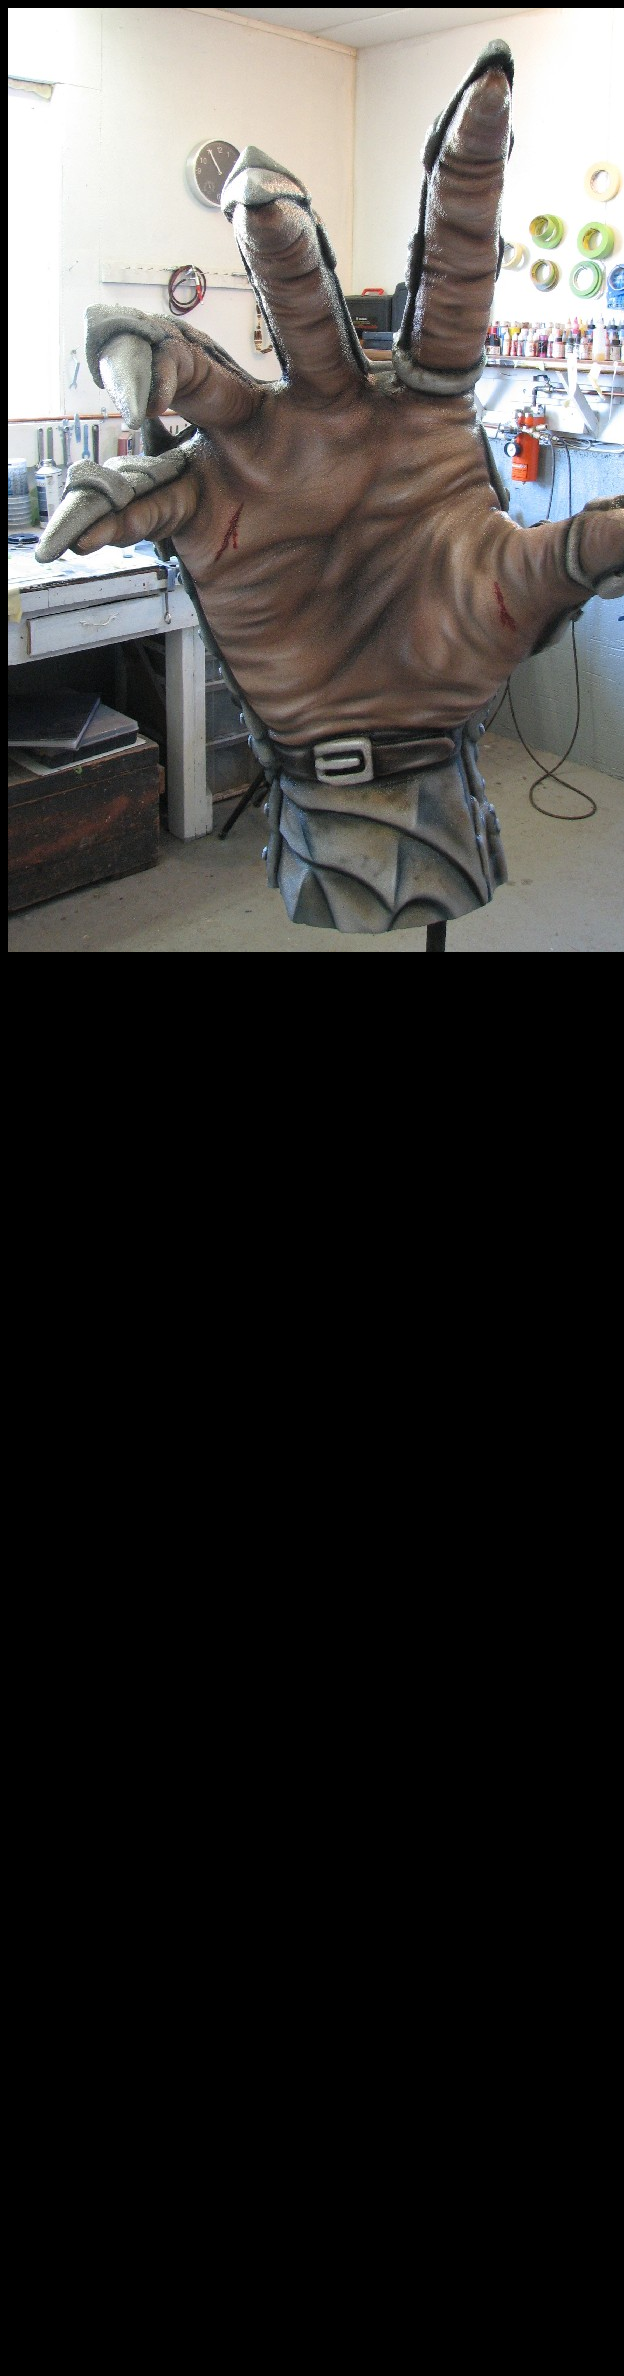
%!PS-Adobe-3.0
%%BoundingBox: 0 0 624 2376
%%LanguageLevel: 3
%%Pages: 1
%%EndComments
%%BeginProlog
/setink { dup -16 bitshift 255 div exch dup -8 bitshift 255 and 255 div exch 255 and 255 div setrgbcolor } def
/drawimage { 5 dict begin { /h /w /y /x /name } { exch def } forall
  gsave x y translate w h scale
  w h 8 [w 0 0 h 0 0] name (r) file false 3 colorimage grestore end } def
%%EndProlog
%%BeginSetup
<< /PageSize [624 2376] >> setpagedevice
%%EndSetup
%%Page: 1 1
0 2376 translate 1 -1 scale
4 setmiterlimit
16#000000 setink
0 0 624 2376 rectfill
(img1.raw) 8 8 616 944 drawimage
showpage
%%EOF
